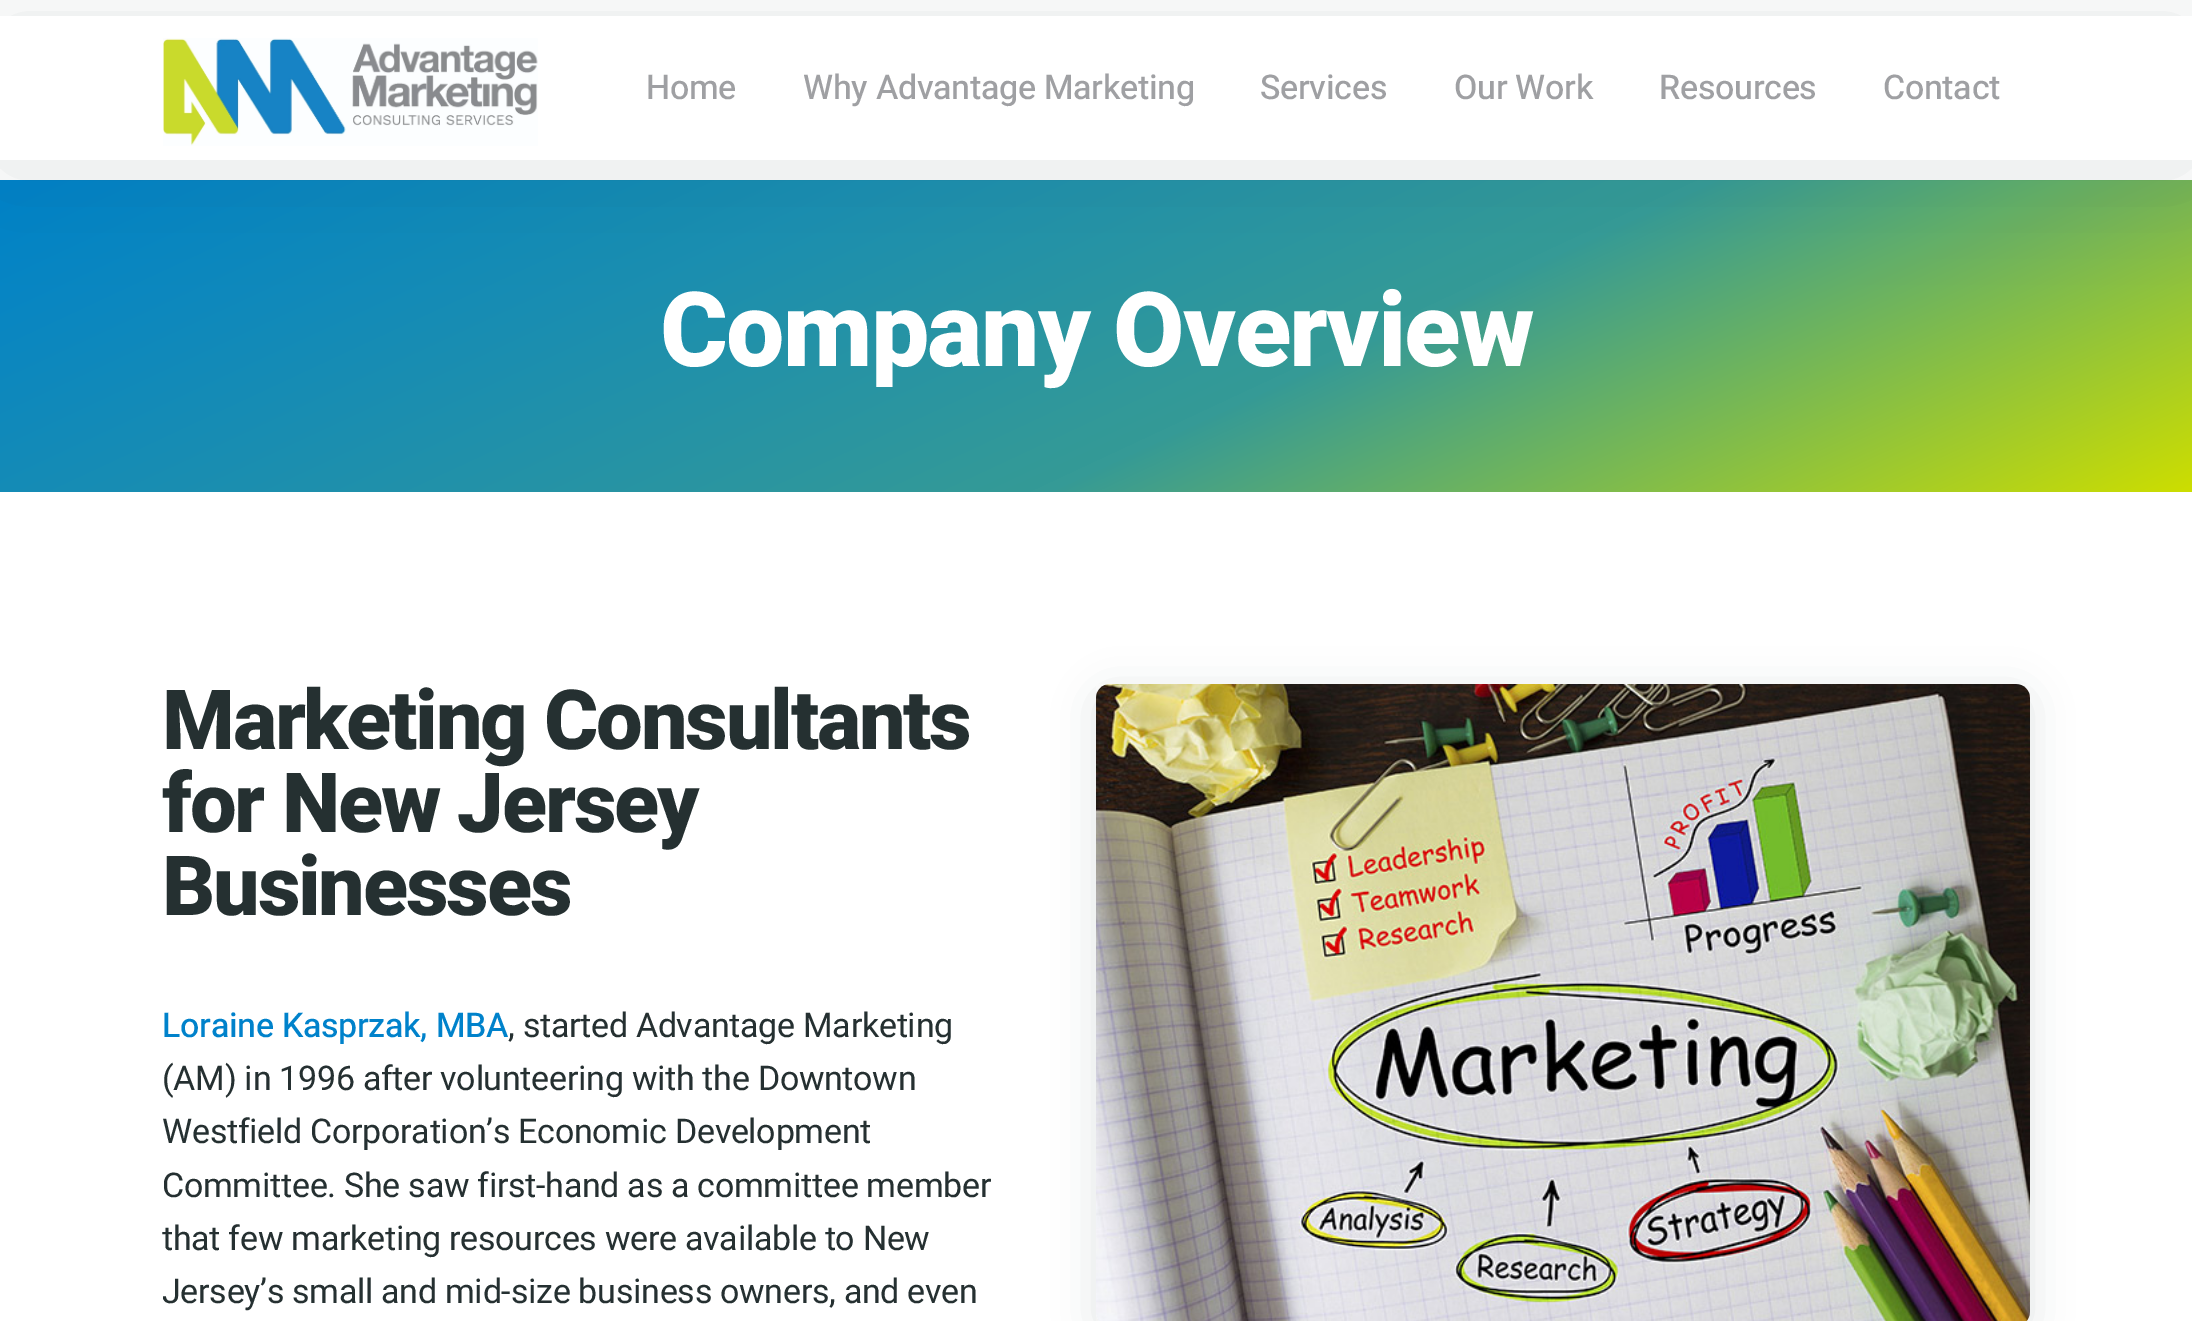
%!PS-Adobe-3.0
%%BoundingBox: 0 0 2192 1321
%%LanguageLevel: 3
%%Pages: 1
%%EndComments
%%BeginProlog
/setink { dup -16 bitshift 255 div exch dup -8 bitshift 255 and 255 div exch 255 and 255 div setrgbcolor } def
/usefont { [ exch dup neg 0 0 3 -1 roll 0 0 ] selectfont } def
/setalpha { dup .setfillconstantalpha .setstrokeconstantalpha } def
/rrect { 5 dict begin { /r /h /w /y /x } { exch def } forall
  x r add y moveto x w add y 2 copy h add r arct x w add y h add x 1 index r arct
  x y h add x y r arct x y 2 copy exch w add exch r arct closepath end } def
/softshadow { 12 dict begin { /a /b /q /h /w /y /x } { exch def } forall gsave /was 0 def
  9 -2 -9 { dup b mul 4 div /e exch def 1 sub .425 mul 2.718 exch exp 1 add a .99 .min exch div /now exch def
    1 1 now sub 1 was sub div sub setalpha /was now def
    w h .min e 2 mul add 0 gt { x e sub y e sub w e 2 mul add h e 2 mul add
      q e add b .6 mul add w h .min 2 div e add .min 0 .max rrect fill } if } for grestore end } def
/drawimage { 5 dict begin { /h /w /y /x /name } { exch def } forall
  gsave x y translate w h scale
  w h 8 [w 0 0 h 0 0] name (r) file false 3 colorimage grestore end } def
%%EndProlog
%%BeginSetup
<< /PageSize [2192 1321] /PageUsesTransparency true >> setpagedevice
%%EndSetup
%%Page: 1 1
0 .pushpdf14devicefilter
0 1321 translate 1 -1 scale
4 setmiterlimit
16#FFFFFF setink
0 0 2192 1321 rectfill
gsave 0 180 moveto 2192 180 lineto 2192 492 lineto 0 492 lineto closepath clip newpath
<< /ShadingType 2 /ColorSpace /DeviceRGB /Coords [840 -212 1352 884] /Extend [true true] /Function << /FunctionType 3 /Domain [0 1] /Functions [<< /FunctionType 2 /Domain [0 1] /C0 [0 0.51 0.796] /C1 [0.208 0.604 0.588] /N 1 >> << /FunctionType 2 /Domain [0 1] /C0 [0.208 0.604 0.588] /C1 [0.804 0.871 0] /N 1 >>] /Bounds [0.6] /Encode [0 1 0 1] >> >> shfill grestore
16#253031 setink
0 24 2192 144 0 52 0.14 softshadow
16#FFFFFF setink
0 16 2192 144 rectfill
(img1.raw) 163 38 375 108 drawimage
/Heebo-Medium 34 usefont
16#9FA0A3 setink
646 99 moveto -0.3 0 (Home) ashow
803 99 moveto -0.3 0 (Why Advantage Marketing) ashow
1260 99 moveto -0.3 0 (Services) ashow
1454 99 moveto -0.3 0 (Our Work) ashow
1659 99 moveto -0.3 0 (Resources) ashow
1883 99 moveto -0.3 0 (Contact) ashow
/Heebo-ExtraBold 103.75 usefont
16#FFFFFF setink
660 366 moveto -1.75 0 (Company Overview) ashow
/Heebo-ExtraBold 83 usefont
16#253031 setink
162 749 moveto -2.25 0 (Marketing Consultants) ashow
162 832 moveto -2.25 0 (for New Jersey) ashow
162 915 moveto -2.25 0 (Businesses) ashow
/Heebo-Medium 34 usefont
16#0082CB setink
162 1037 moveto -0.3 0 (Loraine Kasprzak, MBA) ashow
/Heebo-Regular 34 usefont
16#253031 setink
508 1037 moveto -0.3 0 (, started Advantage Marketing) ashow
162 1090 moveto -0.3 0 (\(AM\) in 1996 after volunteering with the Downtown) ashow
162 1143 moveto -0.3 0 (Westfield Corporation’s Economic Development) ashow
162 1197 moveto -0.3 0 (Committee. She saw first-hand as a committee member) ashow
162 1250 moveto -0.3 0 (that few marketing resources were available to New) ashow
162 1303 moveto -0.3 0 (Jersey’s small and mid-size business owners, and even) ashow
1096 692 934 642 14 20.5 0.14 softshadow
(img2.raw) 1096 684 934 637 drawimage
.poppdf14devicefilter showpage
%%EOF
